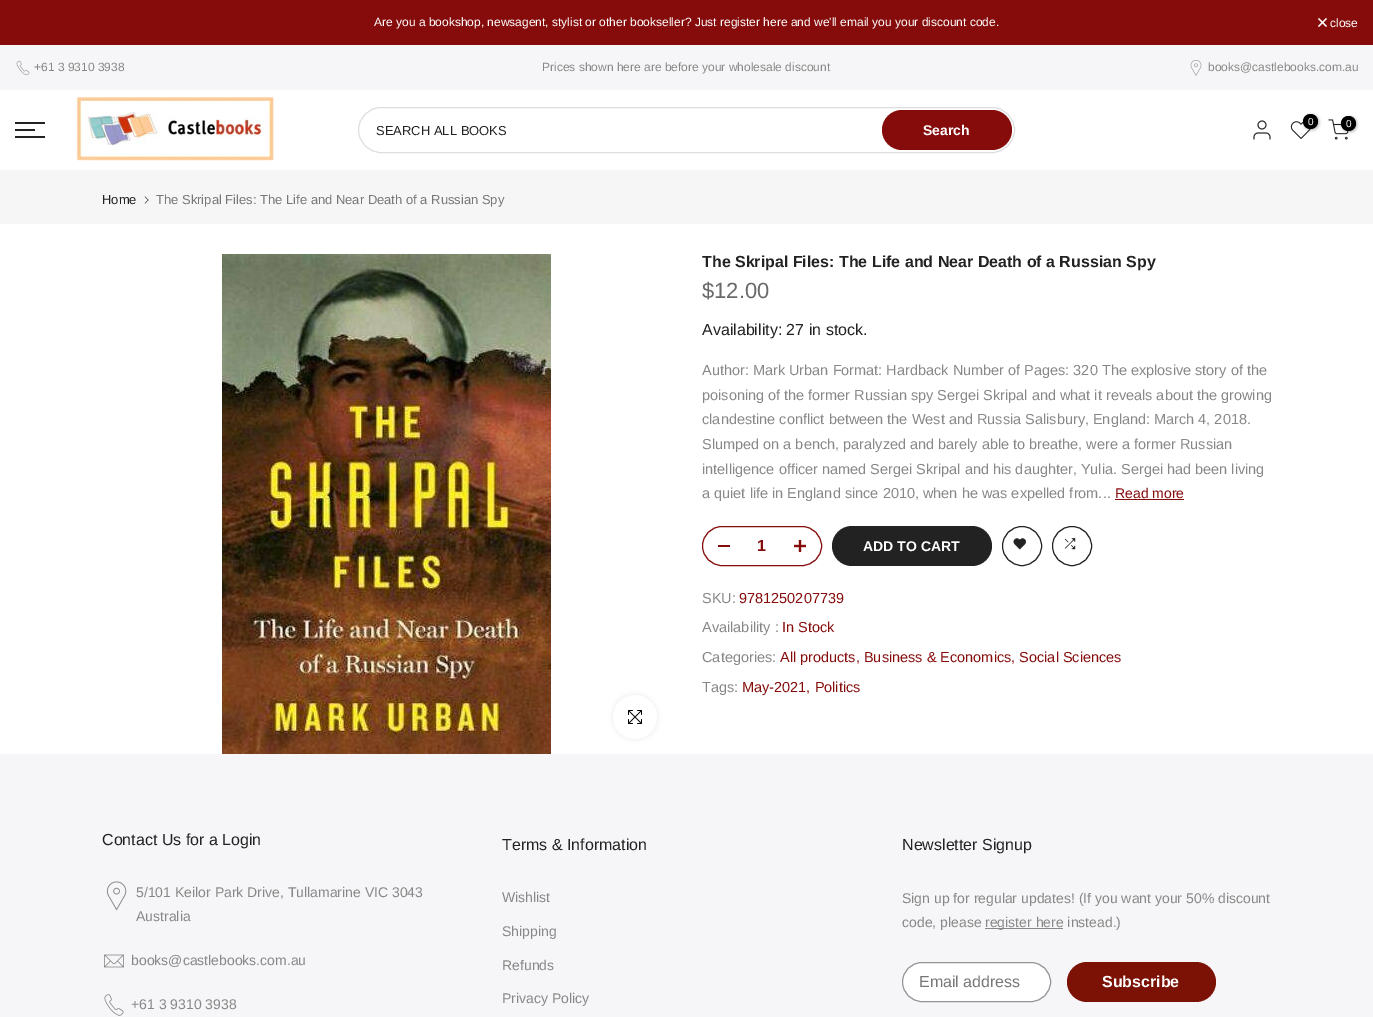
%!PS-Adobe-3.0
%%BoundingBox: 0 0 1373 1017
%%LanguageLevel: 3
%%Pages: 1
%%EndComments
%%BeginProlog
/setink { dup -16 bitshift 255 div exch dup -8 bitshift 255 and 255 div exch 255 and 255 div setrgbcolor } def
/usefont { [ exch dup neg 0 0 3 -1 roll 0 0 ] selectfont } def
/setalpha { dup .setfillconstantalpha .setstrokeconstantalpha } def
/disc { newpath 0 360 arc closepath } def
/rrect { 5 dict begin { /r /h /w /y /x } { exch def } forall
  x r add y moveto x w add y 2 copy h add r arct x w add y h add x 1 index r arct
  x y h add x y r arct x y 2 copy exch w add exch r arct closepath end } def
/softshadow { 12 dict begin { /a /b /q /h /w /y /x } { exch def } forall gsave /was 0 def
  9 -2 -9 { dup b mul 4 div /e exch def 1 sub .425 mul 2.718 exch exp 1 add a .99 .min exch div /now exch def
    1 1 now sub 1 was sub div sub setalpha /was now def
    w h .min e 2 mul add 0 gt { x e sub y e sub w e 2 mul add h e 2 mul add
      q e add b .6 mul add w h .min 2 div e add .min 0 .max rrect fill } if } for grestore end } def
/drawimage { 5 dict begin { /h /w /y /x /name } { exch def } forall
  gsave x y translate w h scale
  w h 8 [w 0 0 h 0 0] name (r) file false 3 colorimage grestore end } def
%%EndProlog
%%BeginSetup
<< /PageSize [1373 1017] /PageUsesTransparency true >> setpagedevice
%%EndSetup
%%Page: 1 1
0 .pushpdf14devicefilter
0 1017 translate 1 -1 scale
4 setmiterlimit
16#FFFFFF setink
0 0 1373 1017 rectfill
16#860C0C setink
0 0 1373 45 rectfill
/LiberationSans-Regular 12 usefont
16#FFFFFF setink
374 26 moveto (Are you a bookshop, newsagent, stylist or other bookseller? Just register here and we'll email you your discount code.) show
1.1 setlinewidth
1326.5 18.5 moveto 1318.5 26.5 lineto 1326.5 26.5 moveto 1318.5 18.5 lineto stroke
1330 27 moveto (close) show
16#F6F6F8 setink
0 45 1373 45 rectfill
(img1.raw) 16 60 14 16 drawimage
16#878787 setink
34 71 moveto (+61 3 9310 3938) show
542 71 moveto (Prices shown here are before your wholesale discount) show
(img2.raw) 1190 60 12 16 drawimage
1208 71 moveto (books@castlebooks.com.au) show
[
    [15 122 30 2 16#222222]
    [15 129 20 2 16#222222]
    [15 136 30 2 16#222222]
] { aload pop setink rectfill } forall
(img3.raw) 75 96 200 65 drawimage
16#DEDEDE setink
1 setlinewidth
358.5 107.5 656 45 22.5 rrect stroke
/LiberationSans-Regular 13 usefont
16#222222 setink
376 135 moveto (SEARCH ALL BOOKS) show
16#860C0C setink
882 110 130 40 20 rrect fill
/LiberationSans-Bold 14 usefont
16#FFFFFF setink
923 135 moveto (Search) show
(img4.raw) 1253 120 18 20 drawimage
(img5.raw) 1290 121 21 18 drawimage
16#000000 setink
1304 115 15 15 7.5 1.5 0.3 softshadow
1310.5 121.5 7.5 disc fill
/LiberationSans-Regular 10 usefont
16#FFFFFF setink
1308 125 moveto (0) show
(img6.raw) 1328 119 21 21 drawimage
16#000000 setink
1342 117 15 15 7.5 1.5 0.3 softshadow
1348.5 123.5 7.5 disc fill
16#FFFFFF setink
1346 127 moveto (0) show
16#F6F6F6 setink
0 170 1373 54 rectfill
/LiberationSans-Regular 13 usefont
16#222222 setink
102 204 moveto (Home) show
(img7.raw) 144 196 5 8 drawimage
16#777777 setink
156 204 moveto (The Skripal Files: The Life and Near Death of a Russian Spy) show
(img8.raw) 222 254 329 500 drawimage
16#000000 setink
613 695 44 44 22 2.5 0.09 softshadow
16#FFFFFF setink
635 717 22 disc fill
(img9.raw) 628 710 14 14 drawimage
/LiberationSans-Bold 16 usefont
16#222222 setink
702 267 moveto (The Skripal Files: The Life and Near Death of a Russian Spy) show
/LiberationSans-Regular 22 usefont
16#696969 setink
702 298 moveto ($12.00) show
/LiberationSans-Regular 16 usefont
16#222222 setink
702 335 moveto (Availability: 27 in stock.) show
/LiberationSans-Regular 14.5 usefont
16#878787 setink
[
    [(Author: Mark Urban Format: Hardback Number of Pages: 320 The explosive story of the) 702 375]
    [(poisoning of the former Russian spy Sergei Skripal and what it reveals about the growing) 702 400]
    [(clandestine conflict between the West and Russia Salisbury, England: March 4, 2018.) 702 424]
    [(Slumped on a bench, paralyzed and barely able to breathe, were a former Russian) 702 449]
    [(intelligence officer named Sergei Skripal and his daughter, Yulia. Sergei had been living) 702 474]
    [(a quiet life in England since 2010, when he was expelled from...) 702 498]
] { aload pop moveto show } forall
/LiberationSans-Regular 14 usefont
16#860C0C setink
1115 498 moveto (Read more) show
1115 499 69 1 rectfill
702.5 526.5 119 39 19.5 rrect stroke
718 545 12 2 rectfill
/LiberationSans-Bold 16 usefont
757 551 moveto (1) show
(img10.raw) 794 540 12 12 drawimage
16#222222 setink
832 526 160 40 20 rrect fill
/LiberationSans-Bold 14 usefont
16#FFFFFF setink
863 551 moveto (ADD TO CART) show
16#222222 setink
1022 546 19.5 disc stroke
(img11.raw) 1013 538 13 12 drawimage
1072 546 19.5 disc stroke
(img12.raw) 1064 538 12 12 drawimage
/LiberationSans-Regular 14.5 usefont
16#878787 setink
702 603 moveto (SKU:) show
16#860C0C setink
739 603 moveto (9781250207739) show
16#878787 setink
702 632 moveto (Availability :) show
16#860C0C setink
782 632 moveto (In Stock) show
16#878787 setink
702 662 moveto (Categories:) show
16#860C0C setink
780 662 moveto (All products, Business & Economics, Social Sciences) show
16#878787 setink
702 692 moveto (Tags:) show
16#860C0C setink
742 692 moveto (May-2021, Politics) show
16#F6F6F8 setink
0 754 1373 263 rectfill
/LiberationSans-Regular 16 usefont
16#222222 setink
102 845 moveto (Contact Us for a Login) show
(img13.raw) 106 881 21 30 drawimage
/LiberationSans-Regular 14 usefont
16#878787 setink
136 897 moveto (5/101 Keilor Park Drive, Tullamarine VIC 3043) show
136 921 moveto (Australia) show
(img14.raw) 104 954 20 14 drawimage
131 965 moveto (books@castlebooks.com.au) show
(img15.raw) 104 994 20 22 drawimage
131 1009 moveto (+61 3 9310 3938) show
/LiberationSans-Regular 16 usefont
16#222222 setink
502 850 moveto (Terms & Information) show
/LiberationSans-Regular 14 usefont
16#878787 setink
[
    [(Wishlist) 502 902]
    [(Shipping) 502 936]
    [(Refunds) 502 970]
    [(Privacy Policy) 502 1003]
] { aload pop moveto show } forall
/LiberationSans-Regular 16 usefont
16#222222 setink
902 850 moveto (Newsletter Signup) show
/LiberationSans-Regular 14 usefont
16#878787 setink
902 903 moveto (Sign up for regular updates! \(If you want your 50% discount) show
902 927 moveto (code, please) show
985 928 78 1 rectfill
985 927 moveto (register here instead.\)) show
16#FFFFFF setink
902.5 962.5 148 39 19.5 rrect gsave fill grestore
16#949596 setink
stroke
/LiberationSans-Regular 16 usefont
16#777777 setink
919 987 moveto (Email address) show
16#7C1205 setink
1067 962 149 40 20 rrect fill
/LiberationSans-Bold 16 usefont
16#FFFFFF setink
1102 987 moveto (Subscribe) show
.poppdf14devicefilter showpage
%%EOF
